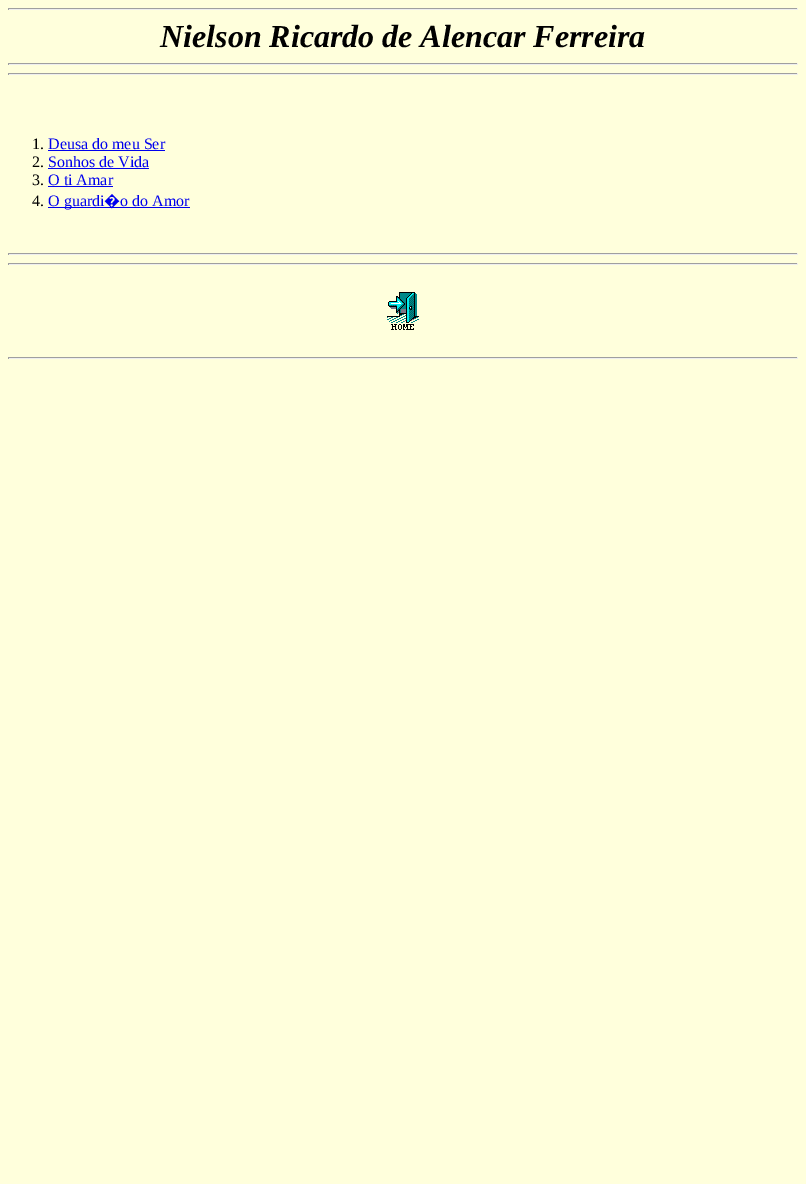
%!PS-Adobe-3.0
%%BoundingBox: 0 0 806 1184
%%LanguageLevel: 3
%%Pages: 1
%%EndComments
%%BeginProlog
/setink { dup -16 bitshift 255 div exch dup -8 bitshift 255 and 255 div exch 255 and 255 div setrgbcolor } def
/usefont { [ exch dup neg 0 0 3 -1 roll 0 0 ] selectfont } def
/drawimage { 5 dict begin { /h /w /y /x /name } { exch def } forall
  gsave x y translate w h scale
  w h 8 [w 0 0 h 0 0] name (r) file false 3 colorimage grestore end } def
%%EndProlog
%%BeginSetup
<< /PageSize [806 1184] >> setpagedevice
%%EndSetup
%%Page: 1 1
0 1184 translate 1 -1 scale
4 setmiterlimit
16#FFFFDC setink
0 0 806 1184 rectfill
[
    [8 8 790 1 16#9F9F9F]
    [797 8 1 2 16#EEEEEE]
    [8 9 790 1 16#EEEEEE]
    [8 8 1 2 16#9F9F9F]
] { aload pop setink rectfill } forall
/LiberationSerif-BoldItalic 32 usefont
16#000000 setink
160 47 moveto (Nielson Ricardo de Alencar Ferreira) show
[
    [8 63 790 1 16#9F9F9F]
    [797 63 1 2 16#EEEEEE]
    [8 64 790 1 16#EEEEEE]
    [8 63 1 2 16#9F9F9F]
    [8 73 790 1 16#9F9F9F]
    [797 73 1 2 16#EEEEEE]
    [8 74 790 1 16#EEEEEE]
    [8 73 1 2 16#9F9F9F]
] { aload pop setink rectfill } forall
/LiberationSerif-Regular 16 usefont
16#000000 setink
32 149 moveto (1.) show
16#0000EE setink
48 149 moveto (Deusa do meu Ser) show
48 150 117 1 rectfill
16#000000 setink
32 167 moveto (2.) show
16#0000EE setink
48 167 moveto (Sonhos de Vida) show
48 168 101 1 rectfill
16#000000 setink
32 185 moveto (3.) show
16#0000EE setink
48 185 moveto (O ti Amar) show
48 186 65 1 rectfill
16#000000 setink
32 206 moveto (4.) show
16#0000EE setink
48 207 142 1 rectfill
48 206 moveto (O guardi) show
/NotoSans-Regular 16 usefont
104 206 moveto (�) show
/LiberationSerif-Regular 16 usefont
120 206 moveto (o do Amor) show
[
    [8 253 790 1 16#9F9F9F]
    [797 253 1 2 16#EEEEEE]
    [8 254 790 1 16#EEEEEE]
    [8 253 1 2 16#9F9F9F]
    [8 263 790 1 16#9F9F9F]
    [797 263 1 2 16#EEEEEE]
    [8 264 790 1 16#EEEEEE]
    [8 263 1 2 16#9F9F9F]
] { aload pop setink rectfill } forall
(img1.raw) 387 292 32 38 drawimage
[
    [8 357 790 1 16#9F9F9F]
    [797 357 1 2 16#EEEEEE]
    [8 358 790 1 16#EEEEEE]
    [8 357 1 2 16#9F9F9F]
] { aload pop setink rectfill } forall
showpage
%%EOF
